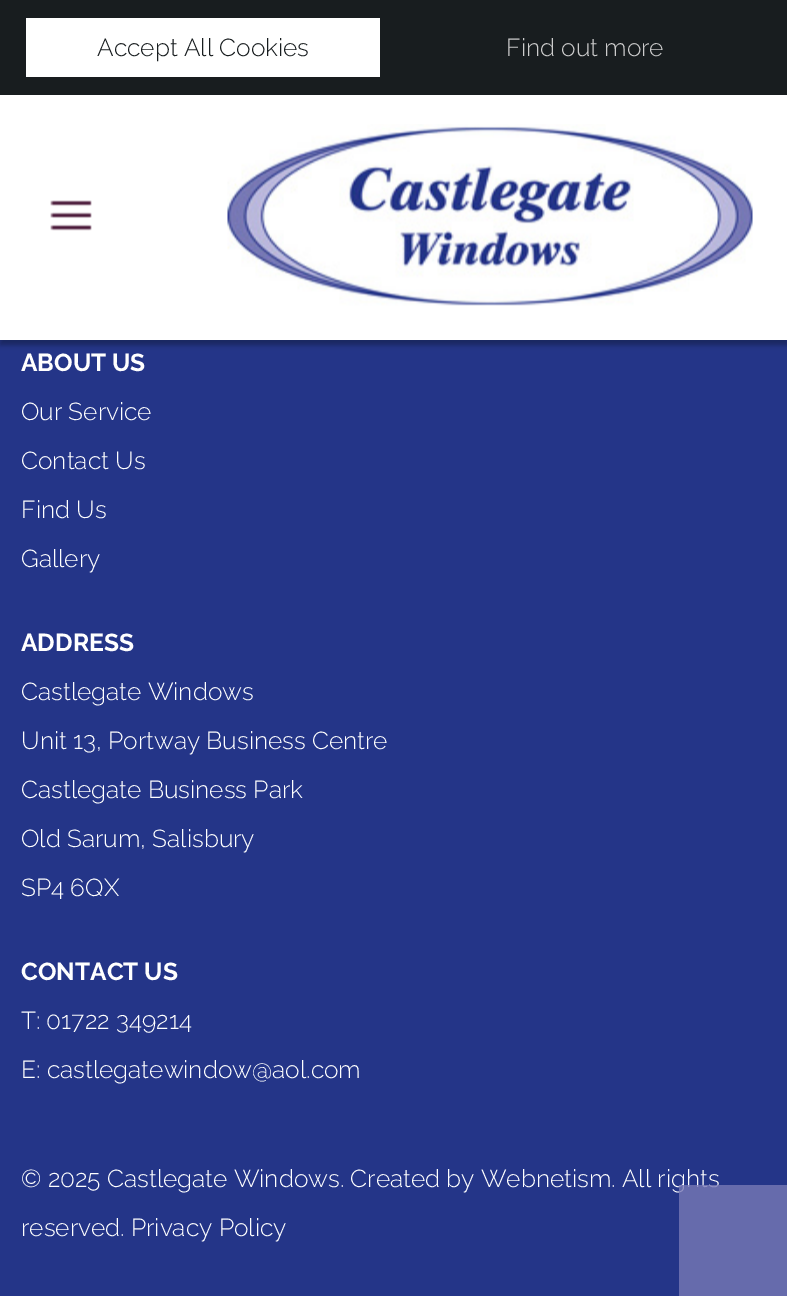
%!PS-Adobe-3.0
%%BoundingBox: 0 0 787 1296
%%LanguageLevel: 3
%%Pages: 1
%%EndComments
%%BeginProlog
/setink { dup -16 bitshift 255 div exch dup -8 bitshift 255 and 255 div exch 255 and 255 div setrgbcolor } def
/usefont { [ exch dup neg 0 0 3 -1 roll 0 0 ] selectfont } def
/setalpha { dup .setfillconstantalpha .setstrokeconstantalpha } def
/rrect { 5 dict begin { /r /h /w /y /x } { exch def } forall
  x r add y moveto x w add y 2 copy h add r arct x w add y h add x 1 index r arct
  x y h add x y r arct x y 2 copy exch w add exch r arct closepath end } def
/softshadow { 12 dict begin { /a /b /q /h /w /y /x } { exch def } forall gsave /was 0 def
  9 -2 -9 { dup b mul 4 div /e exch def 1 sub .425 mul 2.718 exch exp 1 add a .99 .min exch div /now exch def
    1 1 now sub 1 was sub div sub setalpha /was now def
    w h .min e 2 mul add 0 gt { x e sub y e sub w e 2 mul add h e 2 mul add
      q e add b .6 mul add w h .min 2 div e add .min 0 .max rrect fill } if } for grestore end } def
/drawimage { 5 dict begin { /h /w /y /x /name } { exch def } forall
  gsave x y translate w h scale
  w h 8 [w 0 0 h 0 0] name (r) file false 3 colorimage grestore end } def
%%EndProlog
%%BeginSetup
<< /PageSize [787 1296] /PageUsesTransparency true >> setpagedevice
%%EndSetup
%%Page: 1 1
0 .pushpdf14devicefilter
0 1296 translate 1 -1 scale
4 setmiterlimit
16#243588 setink
0 0 787 1296 rectfill
16#000000 setink
0 89 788 256 0 2.5 0.3 softshadow
16#181D1F setink
0 0 787 95 rectfill
16#FFFFFF setink
26 18 354 59 rectfill
/Raleway-Light 24.5 usefont
16#181D1F setink
97 56 moveto (Accept All Cookies) show
16#CCCCCC setink
506 56 moveto (Find out more) show
16#FFFFFF setink
0 95 787 245 rectfill
(img1.raw) 50 200 42 31 drawimage
(img2.raw) 227 124 526 182 drawimage
/Raleway-Bold 24.5 usefont
21 371 moveto (ABOUT US) show
/Raleway-Light 24.5 usefont
[
    [(Our Service) 21 420]
    [(Contact Us) 21 469]
    [(Find Us) 21 518]
    [(Gallery) 21 567]
] { aload pop moveto show } forall
/Raleway-Bold 24.5 usefont
21 651 moveto (ADDRESS) show
/Raleway-Light 24.5 usefont
[
    [(Castlegate Windows) 21 700]
    [(Unit 13, Portway Business Centre) 21 749]
    [(Castlegate Business Park) 21 798]
    [(Old Sarum, Salisbury) 21 847]
    [(SP4 6QX) 21 896]
] { aload pop moveto show } forall
/Raleway-Bold 24.5 usefont
21 980 moveto (CONTACT US) show
/Raleway-Light 24.5 usefont
[
    [(T: 01722 349214) 21 1029]
    [(E: castlegatewindow@aol.com) 21 1078]
    [(© 2025 Castlegate Windows. Created by Webnetism. All rights) 21 1187]
    [(reserved. Privacy Policy) 21 1236]
] { aload pop moveto show } forall
0.8 setalpha
16#7778B5 setink
679 1185 108 111 rectfill
.poppdf14devicefilter showpage
%%EOF
